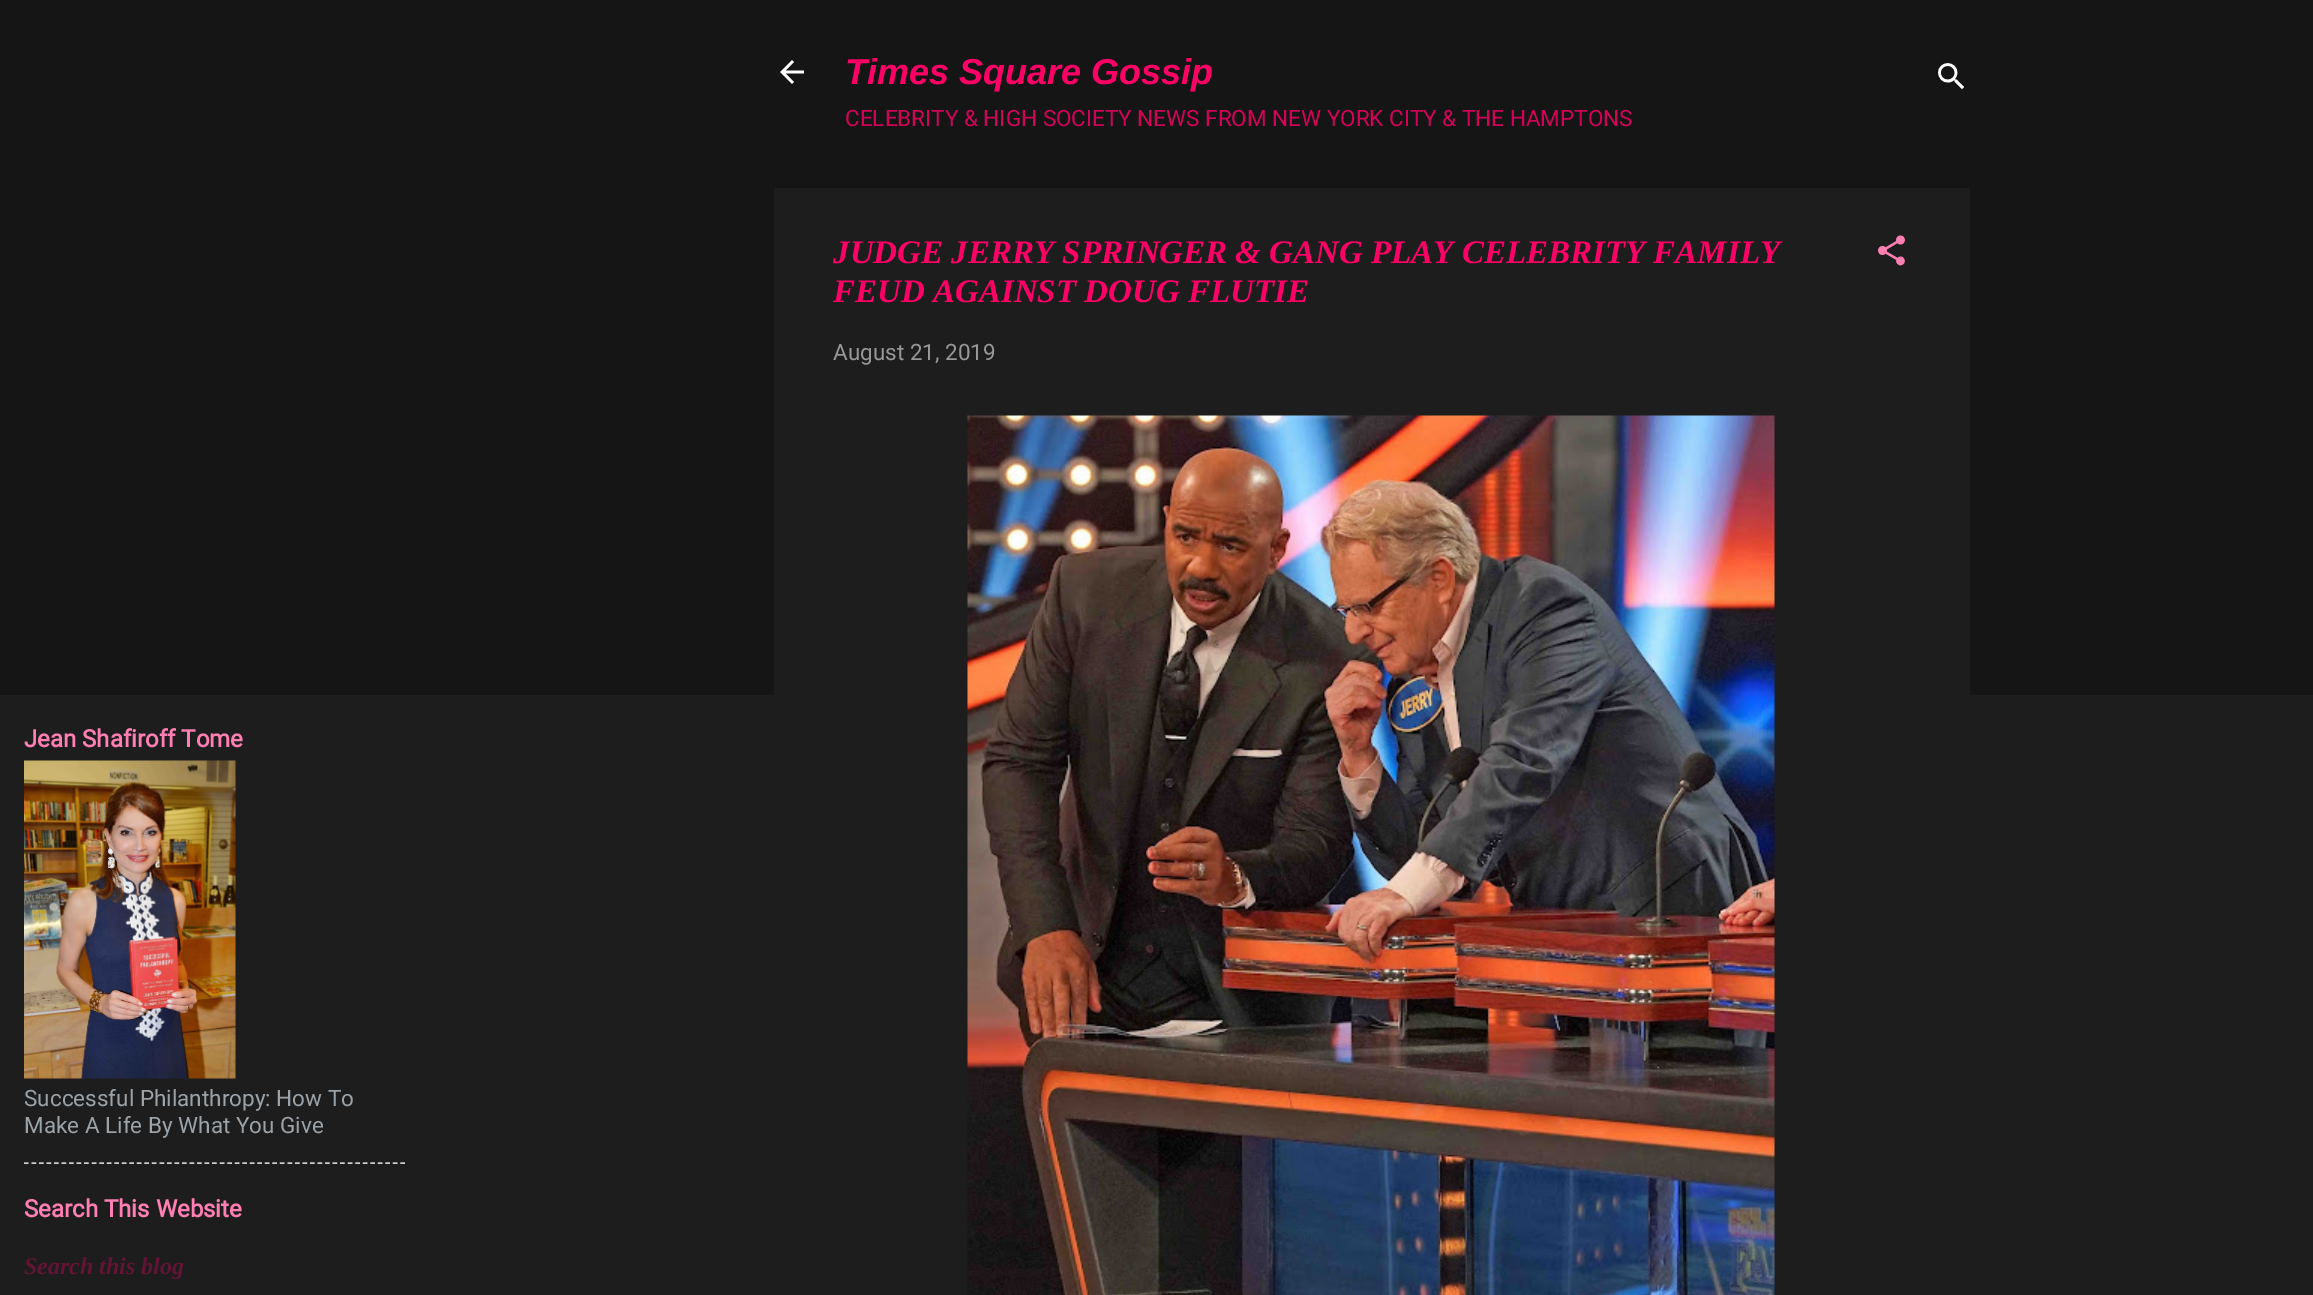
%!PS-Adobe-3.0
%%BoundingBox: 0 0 2313 1295
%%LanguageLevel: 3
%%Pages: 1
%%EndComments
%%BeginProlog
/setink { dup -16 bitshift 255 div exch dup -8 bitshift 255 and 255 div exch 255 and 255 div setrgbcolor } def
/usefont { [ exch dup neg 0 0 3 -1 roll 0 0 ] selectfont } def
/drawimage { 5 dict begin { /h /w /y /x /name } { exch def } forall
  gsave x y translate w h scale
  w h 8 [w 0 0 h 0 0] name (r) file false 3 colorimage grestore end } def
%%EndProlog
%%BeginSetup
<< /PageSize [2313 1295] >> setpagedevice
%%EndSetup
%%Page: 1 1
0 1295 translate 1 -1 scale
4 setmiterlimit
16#1D1D1D setink
0 0 2313 1295 rectfill
16#151515 setink
0 0 2313 695 rectfill
(img1.raw) 780 60 24 24 drawimage
/LiberationSans-BoldItalic 36 usefont
16#FF0067 setink
845 84 moveto (Times Square Gossip) show
/Roboto-Regular 22.5 usefont
16#D00457 setink
845 126 moveto (CELEBRITY & HIGH SOCIETY NEWS FROM NEW YORK CITY & THE HAMPTONS) show
(img2.raw) 1938 63 26 27 drawimage
16#1D1D1D setink
774 188 1196 507 rectfill
/LiberationSerif-BoldItalic 33 usefont
16#FF0067 setink
833 263 moveto (JUDGE JERRY SPRINGER & GANG PLAY CELEBRITY FAMILY) show
833 302 moveto (FEUD AGAINST DOUG FLUTIE) show
(img3.raw) 1878 235 27 31 drawimage
/Roboto-Regular 22.5 usefont
16#979797 setink
833 360 moveto (August 21, 2019) show
(img4.raw) 967 415 808 880 drawimage
/Roboto-Bold 24 usefont
16#FF7FB3 setink
24 747 moveto (Jean Shafiroff Tome) show
(img5.raw) 24 760 212 319 drawimage
/Roboto-Regular 22.5 usefont
16#9BA2A8 setink
24 1106 moveto (Successful Philanthropy: How To) show
24 1133 moveto (Make A Life By What You Give) show
16#CCCCCC setink
1.5 setlinewidth
[4.5 3.03] 0 setdash
24 1163 moveto 405 1163 lineto stroke
/Roboto-Bold 24 usefont
16#FF7FB3 setink
24 1217 moveto (Search This Website) show
/LiberationSerif-BoldItalic 24 usefont
16#611433 setink
24 1274 moveto (Search this blog) show
showpage
%%EOF
